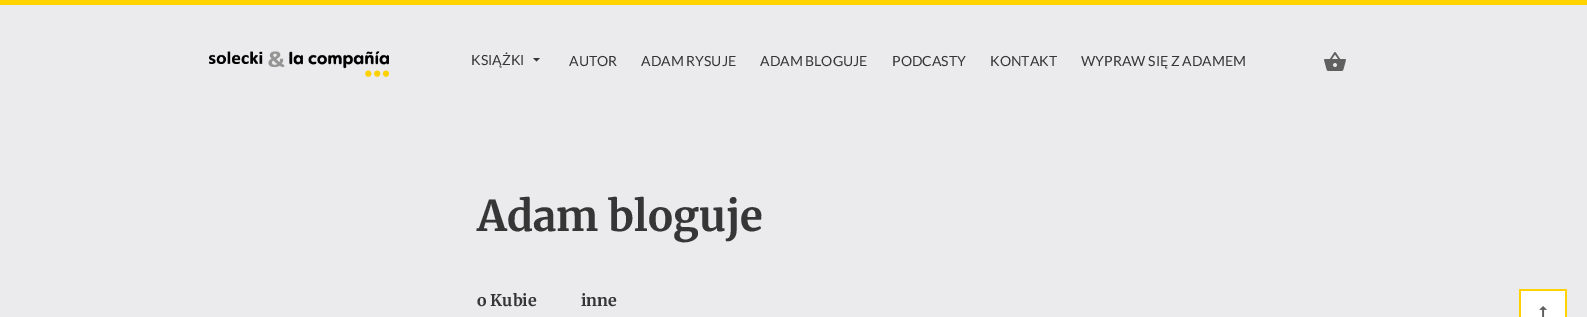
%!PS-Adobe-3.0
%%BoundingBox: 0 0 1587 317
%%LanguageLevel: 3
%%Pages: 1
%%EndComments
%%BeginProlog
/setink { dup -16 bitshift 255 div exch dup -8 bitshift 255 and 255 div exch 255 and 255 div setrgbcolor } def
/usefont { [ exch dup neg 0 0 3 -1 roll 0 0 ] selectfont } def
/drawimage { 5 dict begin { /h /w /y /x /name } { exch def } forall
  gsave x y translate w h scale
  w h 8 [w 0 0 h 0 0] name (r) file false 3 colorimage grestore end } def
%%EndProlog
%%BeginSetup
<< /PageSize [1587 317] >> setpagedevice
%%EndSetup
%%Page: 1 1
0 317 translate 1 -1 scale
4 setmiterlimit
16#EBEBED setink
0 0 1587 317 rectfill
16#FFD200 setink
0 0 1587 5 rectfill
(img1.raw) 209 51 180 26 drawimage
/Lato-Regular 14 usefont
16#363636 setink
471 65 moveto (KSIĄŻKI) show
533 58 moveto 540 58 lineto 536.5 61.5 lineto closepath fill
[
    [(AUTOR) 569 66]
    [(ADAM RYSUJE) 641 66]
    [(ADAM BLOGUJE) 760 66]
    [(PODCASTY) 892 66]
    [(KONTAKT) 990 66]
    [(WYPRAW SIĘ Z ADAMEM) 1081 66]
] { aload pop moveto show } forall
(img2.raw) 1324 52 22 19 drawimage
/Merriweather-Bold 42 usefont
477 231 moveto (Adam bloguje) show
/Merriweather-Bold 16 usefont
477 306 moveto (o Kubie) show
581 306 moveto (inne) show
[
    [1521 291 44 26 16#FFFFFF]
    [1519 289 48 2 16#FFD200]
    [1565 289 2 28 16#FFD200]
    [1519 289 2 28 16#FFD200]
] { aload pop setink rectfill } forall
(img3.raw) 1539 306 8 11 drawimage
showpage
%%EOF
